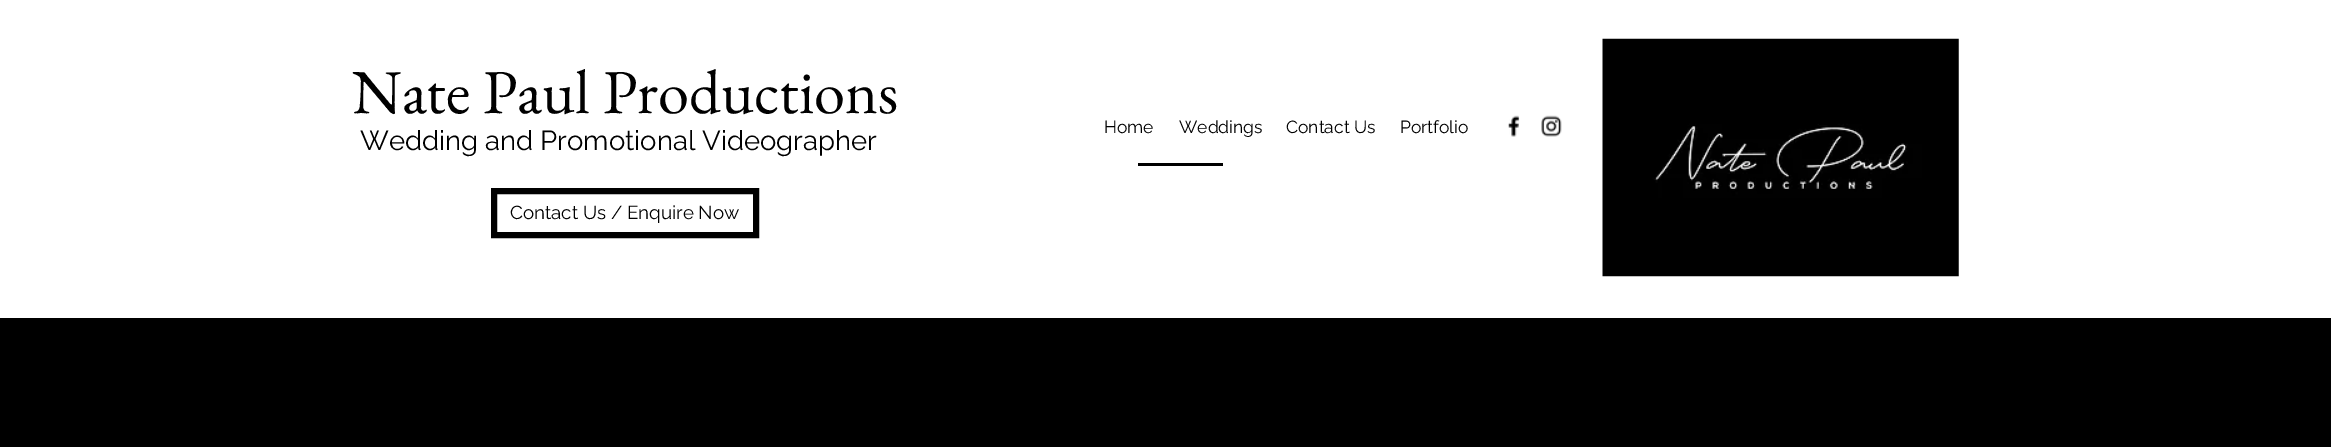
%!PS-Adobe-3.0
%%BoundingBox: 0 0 2331 447
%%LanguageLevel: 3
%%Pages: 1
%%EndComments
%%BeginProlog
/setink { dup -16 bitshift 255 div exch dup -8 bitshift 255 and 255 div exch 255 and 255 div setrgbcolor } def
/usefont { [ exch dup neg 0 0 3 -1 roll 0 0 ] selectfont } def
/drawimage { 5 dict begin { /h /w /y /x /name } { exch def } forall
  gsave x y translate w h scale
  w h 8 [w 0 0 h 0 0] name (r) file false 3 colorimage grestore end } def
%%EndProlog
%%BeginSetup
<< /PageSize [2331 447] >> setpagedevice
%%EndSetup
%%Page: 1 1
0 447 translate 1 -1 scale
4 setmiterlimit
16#FFFFFF setink
0 0 2331 447 rectfill
/EBGaramond-Regular 62.5 usefont
16#000000 setink
352 113 moveto (Nate Paul Productions) show
/Raleway-Regular 27.5 usefont
360 150 moveto (Wedding and Promotional Videographer) show
/Raleway-Regular 17.5 usefont
[
    [(Home) 1104 133]
    [(Weddings) 1179 133]
    [(Contact Us) 1286 133]
    [(Portfolio) 1400 133]
] { aload pop moveto show } forall
(img1.raw) 1508 115 12 22 drawimage
(img2.raw) 1541 115 21 22 drawimage
1138 163 85 3 rectfill
6 setlinewidth
494 191 262 44 rectstroke
/Raleway-Regular 18.75 usefont
510 219 moveto (Contact Us / Enquire Now) show
(img3.raw) 1602 38 357 239 drawimage
0 318 2331 129 rectfill
showpage
%%EOF
